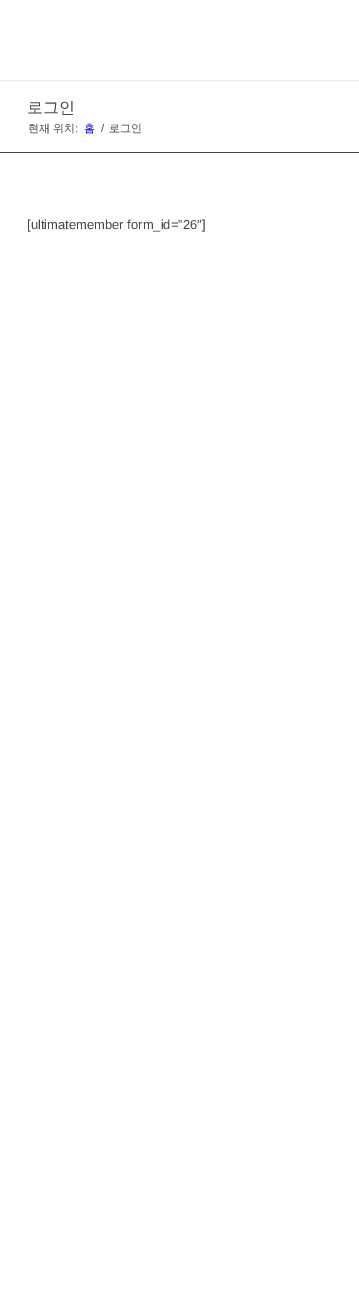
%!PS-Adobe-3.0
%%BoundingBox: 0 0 359 1292
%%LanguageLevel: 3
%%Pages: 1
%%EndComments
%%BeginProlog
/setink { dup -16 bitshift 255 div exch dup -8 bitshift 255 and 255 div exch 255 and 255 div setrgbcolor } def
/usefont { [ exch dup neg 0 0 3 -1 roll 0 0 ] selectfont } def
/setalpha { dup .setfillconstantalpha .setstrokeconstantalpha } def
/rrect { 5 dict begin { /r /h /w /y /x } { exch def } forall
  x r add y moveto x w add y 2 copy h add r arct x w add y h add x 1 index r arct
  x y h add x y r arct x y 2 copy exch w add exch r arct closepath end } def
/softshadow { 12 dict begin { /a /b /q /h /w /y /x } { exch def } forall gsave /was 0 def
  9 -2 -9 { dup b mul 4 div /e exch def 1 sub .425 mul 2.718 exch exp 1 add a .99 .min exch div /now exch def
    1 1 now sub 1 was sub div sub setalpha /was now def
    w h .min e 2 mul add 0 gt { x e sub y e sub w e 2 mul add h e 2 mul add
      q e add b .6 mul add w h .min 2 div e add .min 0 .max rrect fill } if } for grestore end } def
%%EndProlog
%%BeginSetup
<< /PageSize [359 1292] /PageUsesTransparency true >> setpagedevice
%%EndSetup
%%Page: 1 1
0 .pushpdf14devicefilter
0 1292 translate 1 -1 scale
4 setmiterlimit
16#FFFFFF setink
0 0 359 1292 rectfill
gsave
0 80 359 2 rectclip
16#000000 setink
-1 -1 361 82 0 1 0.1 softshadow
grestore
/WenQuanYiZenHei-Medium 16 usefont
16#444444 setink
27 113 moveto (로그인) show
/WenQuanYiZenHei-Medium 11 usefont
28 132 moveto (현재 위치) show
/LiberationSans-Regular 11 usefont
75 132 moveto (:) show
/WenQuanYiZenHei-Medium 11 usefont
16#0000EE setink
84 132 moveto (홈) show
/LiberationSans-Regular 11 usefont
16#444444 setink
101 132 moveto (/) show
/WenQuanYiZenHei-Medium 11 usefont
109 132 moveto (로그인) show
0 152 359 1 rectfill
/LiberationSans-Regular 13 usefont
27 229 moveto ([ultimatemember form_id=”26″]) show
.poppdf14devicefilter showpage
%%EOF
